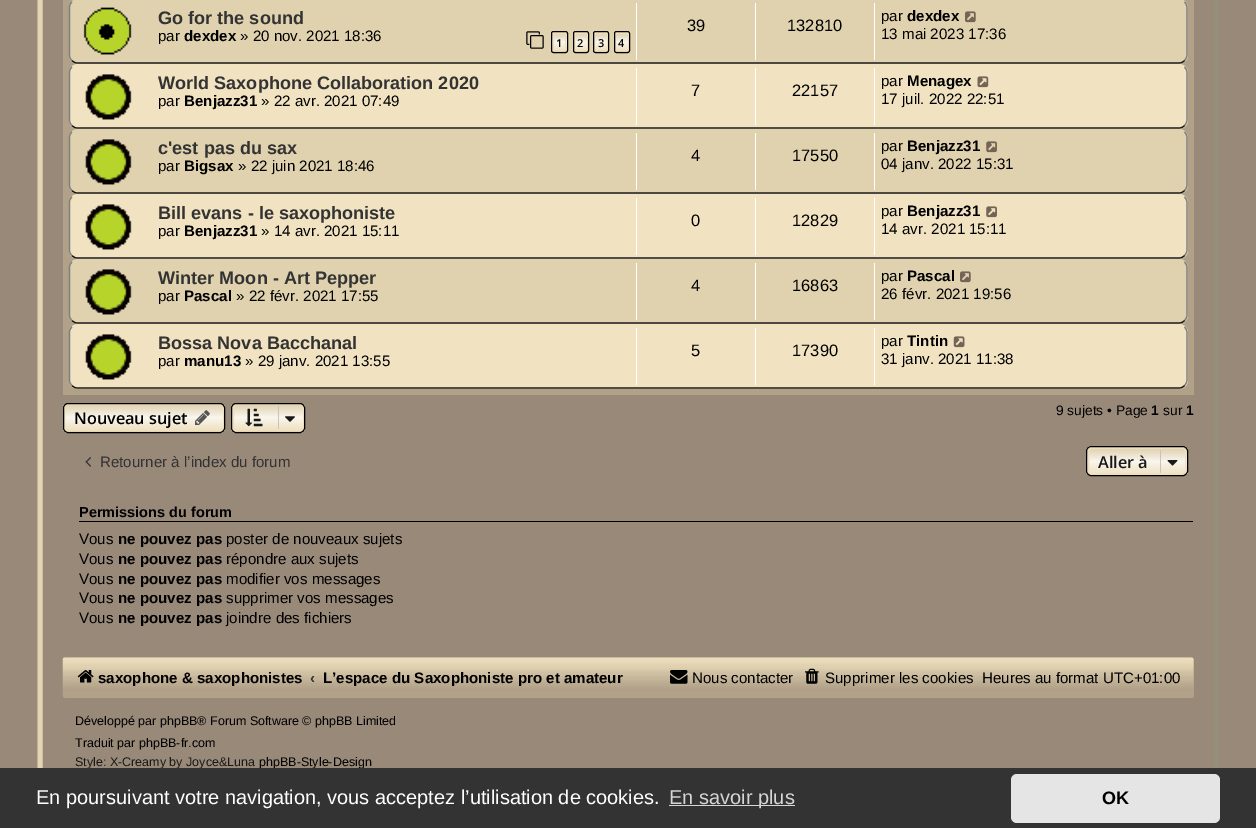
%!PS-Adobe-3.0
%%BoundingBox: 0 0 1256 828
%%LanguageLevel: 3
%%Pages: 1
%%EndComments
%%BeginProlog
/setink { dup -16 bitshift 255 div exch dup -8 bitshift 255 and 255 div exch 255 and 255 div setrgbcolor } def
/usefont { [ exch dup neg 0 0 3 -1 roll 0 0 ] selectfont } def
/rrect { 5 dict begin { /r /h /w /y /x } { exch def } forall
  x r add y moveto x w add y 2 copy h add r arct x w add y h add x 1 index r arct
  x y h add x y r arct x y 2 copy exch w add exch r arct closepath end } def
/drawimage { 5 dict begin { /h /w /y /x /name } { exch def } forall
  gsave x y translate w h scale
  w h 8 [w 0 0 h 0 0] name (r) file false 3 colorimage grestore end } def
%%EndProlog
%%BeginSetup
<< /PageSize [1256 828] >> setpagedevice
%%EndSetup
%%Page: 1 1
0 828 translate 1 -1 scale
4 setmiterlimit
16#998979 setink
0 0 1256 828 rectfill
16#978E78 setink
5 setlinewidth
1214.5 -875.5 moveto 1215.5 -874.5 1216 -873 1216 -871 curveto 1216 820 lineto 1216 821.5 1215.5 823 1214.5 824.5 curveto 1213 825.5 1211.5 826 1210 826 curveto 46 826 lineto 44.5 826 43 825.5 42 824.5 curveto stroke
16#E3D5B4 setink
42 824.5 moveto 40.5 823 40 821.5 40 820 curveto 40 -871 lineto 40 -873 40.5 -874.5 42 -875.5 curveto 43 -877 44.5 -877.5 46 -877.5 curveto 1210 -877.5 lineto 1211.5 -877.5 1213 -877 1214.5 -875.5 curveto stroke
16#B1A189 setink
63 0 1131 395 rectfill
16#E0D2AF setink
69 -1 1119 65 9 rrect fill
16#808080 setink
1.2 setlinewidth
1184.5 2 moveto 1186 3.5 1187 5.5 1187 7.5 curveto 1187 55 lineto 1187 57 1186 59 1184.5 60.5 curveto stroke
16#181818 setink
1184.5 60.5 moveto 1183 62.5 1181 63 1179 63 curveto 77.5 63 lineto 75.5 63 73.5 62.5 72 60.5 curveto stroke
16#808080 setink
72 60.5 moveto 70 59 69.5 57 69.5 55 curveto 69.5 7.5 lineto 69.5 5.5 70 3.5 72 2 curveto stroke
(img1.raw) 83 7 49 48 drawimage
/LiberationSans-Bold 18.1 usefont
16#333333 setink
158 24 moveto (Go for the sound) show
/LiberationSans-Regular 15.1 usefont
16#000000 setink
158 41 moveto (par) show
/LiberationSans-Bold 15.1 usefont
184 41 moveto (dexdex) show
/LiberationSans-Regular 15.1 usefont
240 41 moveto (» 20 nov. 2021 18:36) show
(img2.raw) 526 31 18 18 drawimage
gsave 551 34 moveto 568 34 lineto 568 51 lineto 551 51 lineto closepath clip newpath
<< /ShadingType 2 /ColorSpace /DeviceRGB /Coords [559 33 559 51] /Extend [true true] /Function << /FunctionType 3 /Domain [0 1] /Functions [<< /FunctionType 2 /Domain [0 1] /C0 [0.871 0.816 0.682] /C1 [0.98 0.965 0.929] /N 1 >> << /FunctionType 2 /Domain [0 1] /C0 [0.98 0.965 0.929] /C1 [0.933 0.878 0.749] /N 1 >>] /Bounds [0.5] /Encode [0 1 0 1] >> >> shfill grestore
16#EEE0BF setink
1 setlinewidth
553.5 33.5 12 17 0.5 rrect stroke
gsave
551 31 17 22 2.5 rrect clip newpath
gsave 551 31 moveto 568 31 lineto 568 33 lineto 551 33 lineto closepath clip newpath
<< /ShadingType 2 /ColorSpace /DeviceRGB /Coords [559 14 559 33] /Extend [true true] /Function << /FunctionType 3 /Domain [0 1] /Functions [<< /FunctionType 2 /Domain [0 1] /C0 [0.871 0.816 0.682] /C1 [0.98 0.965 0.929] /N 1 >> << /FunctionType 2 /Domain [0 1] /C0 [0.98 0.965 0.929] /C1 [0.933 0.878 0.749] /N 1 >>] /Bounds [0.5] /Encode [0 1 0 1] >> >> shfill grestore
gsave 551 51 moveto 568 51 lineto 568 53 lineto 551 53 lineto closepath clip newpath
<< /ShadingType 2 /ColorSpace /DeviceRGB /Coords [559 51 559 70] /Extend [true true] /Function << /FunctionType 3 /Domain [0 1] /Functions [<< /FunctionType 2 /Domain [0 1] /C0 [0.871 0.816 0.682] /C1 [0.98 0.965 0.929] /N 1 >> << /FunctionType 2 /Domain [0 1] /C0 [0.98 0.965 0.929] /C1 [0.933 0.878 0.749] /N 1 >>] /Bounds [0.5] /Encode [0 1 0 1] >> >> shfill grestore
grestore
16#000001 setink
551.5 31.5 16 21 2 rrect stroke
/OpenSans-SemiBold 11 usefont
16#000000 setink
556 47 moveto (1) show
gsave 573 34 moveto 589 34 lineto 589 51 lineto 573 51 lineto closepath clip newpath
<< /ShadingType 2 /ColorSpace /DeviceRGB /Coords [581 33 581 51] /Extend [true true] /Function << /FunctionType 3 /Domain [0 1] /Functions [<< /FunctionType 2 /Domain [0 1] /C0 [0.871 0.816 0.682] /C1 [0.98 0.965 0.929] /N 1 >> << /FunctionType 2 /Domain [0 1] /C0 [0.98 0.965 0.929] /C1 [0.933 0.878 0.749] /N 1 >>] /Bounds [0.5] /Encode [0 1 0 1] >> >> shfill grestore
16#EEE0BF setink
574.5 33.5 13 17 0.5 rrect stroke
gsave
573 31 16 22 2.5 rrect clip newpath
gsave 573 31 moveto 589 31 lineto 589 33 lineto 573 33 lineto closepath clip newpath
<< /ShadingType 2 /ColorSpace /DeviceRGB /Coords [581 14 581 33] /Extend [true true] /Function << /FunctionType 3 /Domain [0 1] /Functions [<< /FunctionType 2 /Domain [0 1] /C0 [0.871 0.816 0.682] /C1 [0.98 0.965 0.929] /N 1 >> << /FunctionType 2 /Domain [0 1] /C0 [0.98 0.965 0.929] /C1 [0.933 0.878 0.749] /N 1 >>] /Bounds [0.5] /Encode [0 1 0 1] >> >> shfill grestore
gsave 573 51 moveto 589 51 lineto 589 53 lineto 573 53 lineto closepath clip newpath
<< /ShadingType 2 /ColorSpace /DeviceRGB /Coords [581 51 581 70] /Extend [true true] /Function << /FunctionType 3 /Domain [0 1] /Functions [<< /FunctionType 2 /Domain [0 1] /C0 [0.871 0.816 0.682] /C1 [0.98 0.965 0.929] /N 1 >> << /FunctionType 2 /Domain [0 1] /C0 [0.98 0.965 0.929] /C1 [0.933 0.878 0.749] /N 1 >>] /Bounds [0.5] /Encode [0 1 0 1] >> >> shfill grestore
grestore
16#000001 setink
573.5 31.5 15 21 2 rrect stroke
16#000000 setink
577 47 moveto (2) show
gsave 593 34 moveto 609 34 lineto 609 51 lineto 593 51 lineto closepath clip newpath
<< /ShadingType 2 /ColorSpace /DeviceRGB /Coords [601 33 601 51] /Extend [true true] /Function << /FunctionType 3 /Domain [0 1] /Functions [<< /FunctionType 2 /Domain [0 1] /C0 [0.871 0.816 0.682] /C1 [0.98 0.965 0.929] /N 1 >> << /FunctionType 2 /Domain [0 1] /C0 [0.98 0.965 0.929] /C1 [0.933 0.878 0.749] /N 1 >>] /Bounds [0.5] /Encode [0 1 0 1] >> >> shfill grestore
16#EEE0BF setink
594.5 33.5 13 17 0.5 rrect stroke
gsave
593 31 16 22 2.5 rrect clip newpath
gsave 593 31 moveto 609 31 lineto 609 33 lineto 593 33 lineto closepath clip newpath
<< /ShadingType 2 /ColorSpace /DeviceRGB /Coords [601 14 601 33] /Extend [true true] /Function << /FunctionType 3 /Domain [0 1] /Functions [<< /FunctionType 2 /Domain [0 1] /C0 [0.871 0.816 0.682] /C1 [0.98 0.965 0.929] /N 1 >> << /FunctionType 2 /Domain [0 1] /C0 [0.98 0.965 0.929] /C1 [0.933 0.878 0.749] /N 1 >>] /Bounds [0.5] /Encode [0 1 0 1] >> >> shfill grestore
gsave 593 51 moveto 609 51 lineto 609 53 lineto 593 53 lineto closepath clip newpath
<< /ShadingType 2 /ColorSpace /DeviceRGB /Coords [601 51 601 70] /Extend [true true] /Function << /FunctionType 3 /Domain [0 1] /Functions [<< /FunctionType 2 /Domain [0 1] /C0 [0.871 0.816 0.682] /C1 [0.98 0.965 0.929] /N 1 >> << /FunctionType 2 /Domain [0 1] /C0 [0.98 0.965 0.929] /C1 [0.933 0.878 0.749] /N 1 >>] /Bounds [0.5] /Encode [0 1 0 1] >> >> shfill grestore
grestore
16#000001 setink
593.5 31.5 15 21 2 rrect stroke
16#000000 setink
598 47 moveto (3) show
gsave 614 34 moveto 630 34 lineto 630 51 lineto 614 51 lineto closepath clip newpath
<< /ShadingType 2 /ColorSpace /DeviceRGB /Coords [622 33 622 51] /Extend [true true] /Function << /FunctionType 3 /Domain [0 1] /Functions [<< /FunctionType 2 /Domain [0 1] /C0 [0.871 0.816 0.682] /C1 [0.98 0.965 0.929] /N 1 >> << /FunctionType 2 /Domain [0 1] /C0 [0.98 0.965 0.929] /C1 [0.933 0.878 0.749] /N 1 >>] /Bounds [0.5] /Encode [0 1 0 1] >> >> shfill grestore
16#EEE0BF setink
615.5 33.5 13 17 0.5 rrect stroke
gsave
614 31 16 22 2.5 rrect clip newpath
gsave 614 31 moveto 630 31 lineto 630 33 lineto 614 33 lineto closepath clip newpath
<< /ShadingType 2 /ColorSpace /DeviceRGB /Coords [622 14 622 33] /Extend [true true] /Function << /FunctionType 3 /Domain [0 1] /Functions [<< /FunctionType 2 /Domain [0 1] /C0 [0.871 0.816 0.682] /C1 [0.98 0.965 0.929] /N 1 >> << /FunctionType 2 /Domain [0 1] /C0 [0.98 0.965 0.929] /C1 [0.933 0.878 0.749] /N 1 >>] /Bounds [0.5] /Encode [0 1 0 1] >> >> shfill grestore
gsave 614 51 moveto 630 51 lineto 630 53 lineto 614 53 lineto closepath clip newpath
<< /ShadingType 2 /ColorSpace /DeviceRGB /Coords [622 51 622 70] /Extend [true true] /Function << /FunctionType 3 /Domain [0 1] /Functions [<< /FunctionType 2 /Domain [0 1] /C0 [0.871 0.816 0.682] /C1 [0.98 0.965 0.929] /N 1 >> << /FunctionType 2 /Domain [0 1] /C0 [0.98 0.965 0.929] /C1 [0.933 0.878 0.749] /N 1 >>] /Bounds [0.5] /Encode [0 1 0 1] >> >> shfill grestore
grestore
16#000001 setink
614.5 31.5 15 21 2 rrect stroke
16#000000 setink
618 47 moveto (4) show
16#FFFFFF setink
636 3 1 57 rectfill
/LiberationSans-Regular 16.5 usefont
16#000000 setink
687 31 moveto (39) show
16#FFFFFF setink
755 3 1 57 rectfill
16#000000 setink
787 31 moveto (132810) show
16#FFFFFF setink
874 3 1 57 rectfill
/LiberationSans-Regular 15.1 usefont
16#000000 setink
881 21 moveto (par) show
/LiberationSans-Bold 15.1 usefont
907 21 moveto (dexdex) show
(img3.raw) 965 11 11 12 drawimage
/LiberationSans-Regular 15.1 usefont
881 39 moveto (13 mai 2023 17:36) show
16#F1E3C1 setink
69 64 1119 65 9 rrect fill
16#808080 setink
1.2 setlinewidth
1184.5 67 moveto 1186 68.5 1187 70.5 1187 72.5 curveto 1187 120 lineto 1187 122 1186 124 1184.5 125.5 curveto stroke
16#181818 setink
1184.5 125.5 moveto 1183 127.5 1181 128 1179 128 curveto 77.5 128 lineto 75.5 128 73.5 127.5 72 125.5 curveto stroke
16#808080 setink
72 125.5 moveto 70 124 69.5 122 69.5 120 curveto 69.5 72.5 lineto 69.5 70.5 70 68.5 72 67 curveto stroke
(img4.raw) 85 74 47 46 drawimage
/LiberationSans-Bold 18.1 usefont
16#333333 setink
158 89 moveto (World Saxophone Collaboration 2020) show
/LiberationSans-Regular 15.1 usefont
16#000000 setink
158 106 moveto (par) show
/LiberationSans-Bold 15.1 usefont
184 106 moveto (Benjazz31) show
/LiberationSans-Regular 15.1 usefont
261 106 moveto (» 22 avr. 2021 07:49) show
16#FFFFFF setink
636 68 1 57 rectfill
/LiberationSans-Regular 16.5 usefont
16#000000 setink
691 96 moveto (7) show
16#FFFFFF setink
755 68 1 57 rectfill
16#000000 setink
792 96 moveto (22157) show
16#FFFFFF setink
874 68 1 57 rectfill
/LiberationSans-Regular 15.1 usefont
16#000000 setink
881 86 moveto (par) show
/LiberationSans-Bold 15.1 usefont
907 86 moveto (Menagex) show
(img5.raw) 977 76 12 12 drawimage
/LiberationSans-Regular 15.1 usefont
881 104 moveto (17 juil. 2022 22:51) show
16#E0D2AF setink
69 129 1119 65 9 rrect fill
16#808080 setink
1184.5 132 moveto 1186 133.5 1187 135.5 1187 137.5 curveto 1187 185 lineto 1187 187 1186 189 1184.5 190.5 curveto stroke
16#181818 setink
1184.5 190.5 moveto 1183 192.5 1181 193 1179 193 curveto 77.5 193 lineto 75.5 193 73.5 192.5 72 190.5 curveto stroke
16#808080 setink
72 190.5 moveto 70 189 69.5 187 69.5 185 curveto 69.5 137.5 lineto 69.5 135.5 70 133.5 72 132 curveto stroke
(img6.raw) 85 139 47 46 drawimage
/LiberationSans-Bold 18.1 usefont
16#333333 setink
158 154 moveto (c'est pas du sax) show
/LiberationSans-Regular 15.1 usefont
16#000000 setink
158 171 moveto (par) show
/LiberationSans-Bold 15.1 usefont
184 171 moveto (Bigsax) show
/LiberationSans-Regular 15.1 usefont
238 171 moveto (» 22 juin 2021 18:46) show
16#FFFFFF setink
636 133 1 57 rectfill
/LiberationSans-Regular 16.5 usefont
16#000000 setink
691 161 moveto (4) show
16#FFFFFF setink
755 133 1 57 rectfill
16#000000 setink
792 161 moveto (17550) show
16#FFFFFF setink
874 133 1 57 rectfill
/LiberationSans-Regular 15.1 usefont
16#000000 setink
881 151 moveto (par) show
/LiberationSans-Bold 15.1 usefont
907 151 moveto (Benjazz31) show
(img7.raw) 986 141 11 12 drawimage
/LiberationSans-Regular 15.1 usefont
881 169 moveto (04 janv. 2022 15:31) show
16#F1E3C1 setink
69 194 1119 65 9 rrect fill
16#808080 setink
1184.5 197 moveto 1186 198.5 1187 200.5 1187 202.5 curveto 1187 250 lineto 1187 252 1186 254 1184.5 255.5 curveto stroke
16#181818 setink
1184.5 255.5 moveto 1183 257.5 1181 258 1179 258 curveto 77.5 258 lineto 75.5 258 73.5 257.5 72 255.5 curveto stroke
16#808080 setink
72 255.5 moveto 70 254 69.5 252 69.5 250 curveto 69.5 202.5 lineto 69.5 200.5 70 198.5 72 197 curveto stroke
(img8.raw) 85 204 47 46 drawimage
/LiberationSans-Bold 18.1 usefont
16#333333 setink
158 219 moveto (Bill evans - le saxophoniste) show
/LiberationSans-Regular 15.1 usefont
16#000000 setink
158 236 moveto (par) show
/LiberationSans-Bold 15.1 usefont
184 236 moveto (Benjazz31) show
/LiberationSans-Regular 15.1 usefont
261 236 moveto (» 14 avr. 2021 15:11) show
16#FFFFFF setink
636 198 1 57 rectfill
/LiberationSans-Regular 16.5 usefont
16#000000 setink
691 226 moveto (0) show
16#FFFFFF setink
755 198 1 57 rectfill
16#000000 setink
792 226 moveto (12829) show
16#FFFFFF setink
874 198 1 57 rectfill
/LiberationSans-Regular 15.1 usefont
16#000000 setink
881 216 moveto (par) show
/LiberationSans-Bold 15.1 usefont
907 216 moveto (Benjazz31) show
(img9.raw) 986 206 11 12 drawimage
/LiberationSans-Regular 15.1 usefont
881 234 moveto (14 avr. 2021 15:11) show
16#E0D2AF setink
69 259 1119 65 9 rrect fill
16#808080 setink
1184.5 262 moveto 1186 263.5 1187 265.5 1187 267.5 curveto 1187 315 lineto 1187 317 1186 319 1184.5 320.5 curveto stroke
16#181818 setink
1184.5 320.5 moveto 1183 322.5 1181 323 1179 323 curveto 77.5 323 lineto 75.5 323 73.5 322.5 72 320.5 curveto stroke
16#808080 setink
72 320.5 moveto 70 319 69.5 317 69.5 315 curveto 69.5 267.5 lineto 69.5 265.5 70 263.5 72 262 curveto stroke
(img10.raw) 85 269 47 46 drawimage
/LiberationSans-Bold 18.1 usefont
16#333333 setink
158 284 moveto (Winter Moon - Art Pepper) show
/LiberationSans-Regular 15.1 usefont
16#000000 setink
158 301 moveto (par) show
/LiberationSans-Bold 15.1 usefont
184 301 moveto (Pascal) show
/LiberationSans-Regular 15.1 usefont
236 301 moveto (» 22 févr. 2021 17:55) show
16#FFFFFF setink
636 263 1 57 rectfill
/LiberationSans-Regular 16.5 usefont
16#000000 setink
691 291 moveto (4) show
16#FFFFFF setink
755 263 1 57 rectfill
16#000000 setink
792 291 moveto (16863) show
16#FFFFFF setink
874 263 1 57 rectfill
/LiberationSans-Regular 15.1 usefont
16#000000 setink
881 281 moveto (par) show
/LiberationSans-Bold 15.1 usefont
907 281 moveto (Pascal) show
(img3.raw) 960 271 11 12 drawimage
/LiberationSans-Regular 15.1 usefont
881 299 moveto (26 févr. 2021 19:56) show
16#F1E3C1 setink
69 324 1119 65 9 rrect fill
16#808080 setink
1184.5 327 moveto 1186 328.5 1187 330.5 1187 332.5 curveto 1187 380 lineto 1187 382 1186 384 1184.5 385.5 curveto stroke
16#181818 setink
1184.5 385.5 moveto 1183 387.5 1181 388 1179 388 curveto 77.5 388 lineto 75.5 388 73.5 387.5 72 385.5 curveto stroke
16#808080 setink
72 385.5 moveto 70 384 69.5 382 69.5 380 curveto 69.5 332.5 lineto 69.5 330.5 70 328.5 72 327 curveto stroke
(img11.raw) 85 334 47 46 drawimage
/LiberationSans-Bold 18.1 usefont
16#333333 setink
158 349 moveto (Bossa Nova Bacchanal) show
/LiberationSans-Regular 15.1 usefont
16#000000 setink
158 366 moveto (par) show
/LiberationSans-Bold 15.1 usefont
184 366 moveto (manu13) show
/LiberationSans-Regular 15.1 usefont
245 366 moveto (» 29 janv. 2021 13:55) show
16#FFFFFF setink
636 328 1 57 rectfill
/LiberationSans-Regular 16.5 usefont
16#000000 setink
691 356 moveto (5) show
16#FFFFFF setink
755 328 1 57 rectfill
16#000000 setink
792 356 moveto (17390) show
16#FFFFFF setink
874 328 1 57 rectfill
/LiberationSans-Regular 15.1 usefont
16#000000 setink
881 346 moveto (par) show
/LiberationSans-Bold 15.1 usefont
907 346 moveto (Tintin) show
(img12.raw) 953 336 12 12 drawimage
/LiberationSans-Regular 15.1 usefont
881 364 moveto (31 janv. 2021 11:38) show
gsave
63 403 162 30 5 rrect clip newpath
gsave 63 404 moveto 225 404 lineto 225 431 lineto 63 431 lineto closepath clip newpath
<< /ShadingType 2 /ColorSpace /DeviceRGB /Coords [144 404 144 431] /Extend [true true] /Function << /FunctionType 3 /Domain [0 1] /Functions [<< /FunctionType 2 /Domain [0 1] /C0 [0.871 0.816 0.682] /C1 [0.98 0.965 0.929] /N 1 >> << /FunctionType 2 /Domain [0 1] /C0 [0.98 0.965 0.929] /C1 [0.933 0.878 0.749] /N 1 >>] /Bounds [0.5] /Encode [0 1 0 1] >> >> shfill grestore
gsave 63 431 moveto 225 431 lineto 225 433 lineto 63 433 lineto closepath clip newpath
<< /ShadingType 2 /ColorSpace /DeviceRGB /Coords [144 431 144 459] /Extend [true true] /Function << /FunctionType 3 /Domain [0 1] /Functions [<< /FunctionType 2 /Domain [0 1] /C0 [0.871 0.816 0.682] /C1 [0.98 0.965 0.929] /N 1 >> << /FunctionType 2 /Domain [0 1] /C0 [0.98 0.965 0.929] /C1 [0.933 0.878 0.749] /N 1 >>] /Bounds [0.5] /Encode [0 1 0 1] >> >> shfill grestore
grestore
16#EEE0BF setink
1 setlinewidth
64.5 404.5 159 26 3.5 rrect stroke
16#000000 setink
63.5 403.5 161 29 4.5 rrect stroke
/OpenSans-SemiBold 16.25 usefont
74 424 moveto (Nouveau sujet) show
(img13.raw) 195 410 15 15 drawimage
gsave
231 403 74 30 5 rrect clip newpath
gsave 231 404 moveto 305 404 lineto 305 431 lineto 231 431 lineto closepath clip newpath
<< /ShadingType 2 /ColorSpace /DeviceRGB /Coords [268 404 268 431] /Extend [true true] /Function << /FunctionType 3 /Domain [0 1] /Functions [<< /FunctionType 2 /Domain [0 1] /C0 [0.871 0.816 0.682] /C1 [0.98 0.965 0.929] /N 1 >> << /FunctionType 2 /Domain [0 1] /C0 [0.98 0.965 0.929] /C1 [0.933 0.878 0.749] /N 1 >>] /Bounds [0.5] /Encode [0 1 0 1] >> >> shfill grestore
gsave 231 431 moveto 305 431 lineto 305 433 lineto 231 433 lineto closepath clip newpath
<< /ShadingType 2 /ColorSpace /DeviceRGB /Coords [268 431 268 459] /Extend [true true] /Function << /FunctionType 3 /Domain [0 1] /Functions [<< /FunctionType 2 /Domain [0 1] /C0 [0.871 0.816 0.682] /C1 [0.98 0.965 0.929] /N 1 >> << /FunctionType 2 /Domain [0 1] /C0 [0.98 0.965 0.929] /C1 [0.933 0.878 0.749] /N 1 >>] /Bounds [0.5] /Encode [0 1 0 1] >> >> shfill grestore
grestore
16#EEE0BF setink
233.5 404.5 70 26 3.5 rrect stroke
16#000000 setink
231.5 403.5 73 29 4.5 rrect stroke
(img14.raw) 245 408 18 19 drawimage
16#C7C3BF setink
278 406 1 23 rectfill
(img15.raw) 285 416 10 6 drawimage
/LiberationSans-Regular 13.75 usefont
16#000000 setink
1056 415 moveto (9 sujets • Page) show
/LiberationSans-Bold 13.75 usefont
1151 415 moveto (1) show
/LiberationSans-Regular 13.75 usefont
1163 415 moveto (sur) show
/LiberationSans-Bold 13.75 usefont
1186 415 moveto (1) show
(img16.raw) 85 457 6 10 drawimage
/LiberationSans-Regular 15.1 usefont
16#333333 setink
100 467 moveto (Retourner à l’index du forum) show
gsave
1086 446 102 30 5 rrect clip newpath
gsave 1086 446 moveto 1188 446 lineto 1188 448 lineto 1086 448 lineto closepath clip newpath
<< /ShadingType 2 /ColorSpace /DeviceRGB /Coords [1137 420 1137 448] /Extend [true true] /Function << /FunctionType 3 /Domain [0 1] /Functions [<< /FunctionType 2 /Domain [0 1] /C0 [0.871 0.816 0.682] /C1 [0.98 0.965 0.929] /N 1 >> << /FunctionType 2 /Domain [0 1] /C0 [0.98 0.965 0.929] /C1 [0.933 0.878 0.749] /N 1 >>] /Bounds [0.5] /Encode [0 1 0 1] >> >> shfill grestore
gsave 1086 448 moveto 1188 448 lineto 1188 475 lineto 1086 475 lineto closepath clip newpath
<< /ShadingType 2 /ColorSpace /DeviceRGB /Coords [1137 448 1137 475] /Extend [true true] /Function << /FunctionType 3 /Domain [0 1] /Functions [<< /FunctionType 2 /Domain [0 1] /C0 [0.871 0.816 0.682] /C1 [0.98 0.965 0.929] /N 1 >> << /FunctionType 2 /Domain [0 1] /C0 [0.98 0.965 0.929] /C1 [0.933 0.878 0.749] /N 1 >>] /Bounds [0.5] /Encode [0 1 0 1] >> >> shfill grestore
grestore
16#EEE0BF setink
1088.5 448.5 97 26 3.5 rrect stroke
16#000000 setink
1086.5 446.5 101 29 4.5 rrect stroke
/OpenSans-SemiBold 16.25 usefont
16#181818 setink
1098 468 moveto (Aller à) show
16#C7C3BF setink
1160 450 1 23 rectfill
(img17.raw) 1167 460 11 6 drawimage
16#000000 setink
79 521 1114 1 rectfill
/LiberationSans-Bold 14.5 usefont
79 517 moveto (Permissions du forum) show
/LiberationSans-Regular 15.1 usefont
79 544 moveto (Vous) show
/LiberationSans-Bold 15.1 usefont
118 544 moveto (ne pouvez pas) show
/LiberationSans-Regular 15.1 usefont
226 544 moveto (poster de nouveaux sujets) show
79 564 moveto (Vous) show
/LiberationSans-Bold 15.1 usefont
118 564 moveto (ne pouvez pas) show
/LiberationSans-Regular 15.1 usefont
226 564 moveto (répondre aux sujets) show
79 584 moveto (Vous) show
/LiberationSans-Bold 15.1 usefont
118 584 moveto (ne pouvez pas) show
/LiberationSans-Regular 15.1 usefont
226 584 moveto (modifier vos messages) show
79 603 moveto (Vous) show
/LiberationSans-Bold 15.1 usefont
118 603 moveto (ne pouvez pas) show
/LiberationSans-Regular 15.1 usefont
226 603 moveto (supprimer vos messages) show
79 623 moveto (Vous) show
/LiberationSans-Bold 15.1 usefont
118 623 moveto (ne pouvez pas) show
/LiberationSans-Regular 15.1 usefont
226 623 moveto (joindre des fichiers) show
16#B1A189 setink
63 658 1131 40 2.5 rrect fill
(img18.raw) 62 657 1132 38 drawimage
(img19.raw) 77 670 17 13 drawimage
/LiberationSans-Bold 15.1 usefont
16#000000 setink
98 683 moveto (saxophone & saxophonistes) show
16#333333 setink
310 683 moveto (‹) show
16#000000 setink
323 683 moveto (L’espace du Saxophoniste pro et amateur) show
(img20.raw) 670 670 18 14 drawimage
/LiberationSans-Regular 15.1 usefont
692 683 moveto (Nous contacter) show
(img21.raw) 805 668 14 16 drawimage
825 683 moveto (Supprimer les cookies) show
982 683 moveto (Heures au format UTC+01:00) show
/LiberationSans-Regular 12.5 usefont
75 725 moveto (Développé par phpBB® Forum Software © phpBB Limited) show
75 747 moveto (Traduit par phpBB-fr.com) show
16#181818 setink
75 766 moveto (Style: X-Creamy by Joyce&Luna) show
16#000000 setink
259 766 moveto (phpBB-Style-Design) show
16#333333 setink
0 768 1256 60 rectfill
/LiberationSans-Regular 20 usefont
16#FFFFFF setink
36 804 moveto (En poursuivant votre navigation, vous acceptez l’utilisation de cookies.) show
16#D6D6D6 setink
669 805 126 1 rectfill
669 804 moveto (En savoir plus) show
16#E5E5E5 setink
1011 774 209 49 6 rrect fill
/LiberationSans-Bold 18 usefont
16#000000 setink
1102 804 moveto (OK) show
showpage
%%EOF
